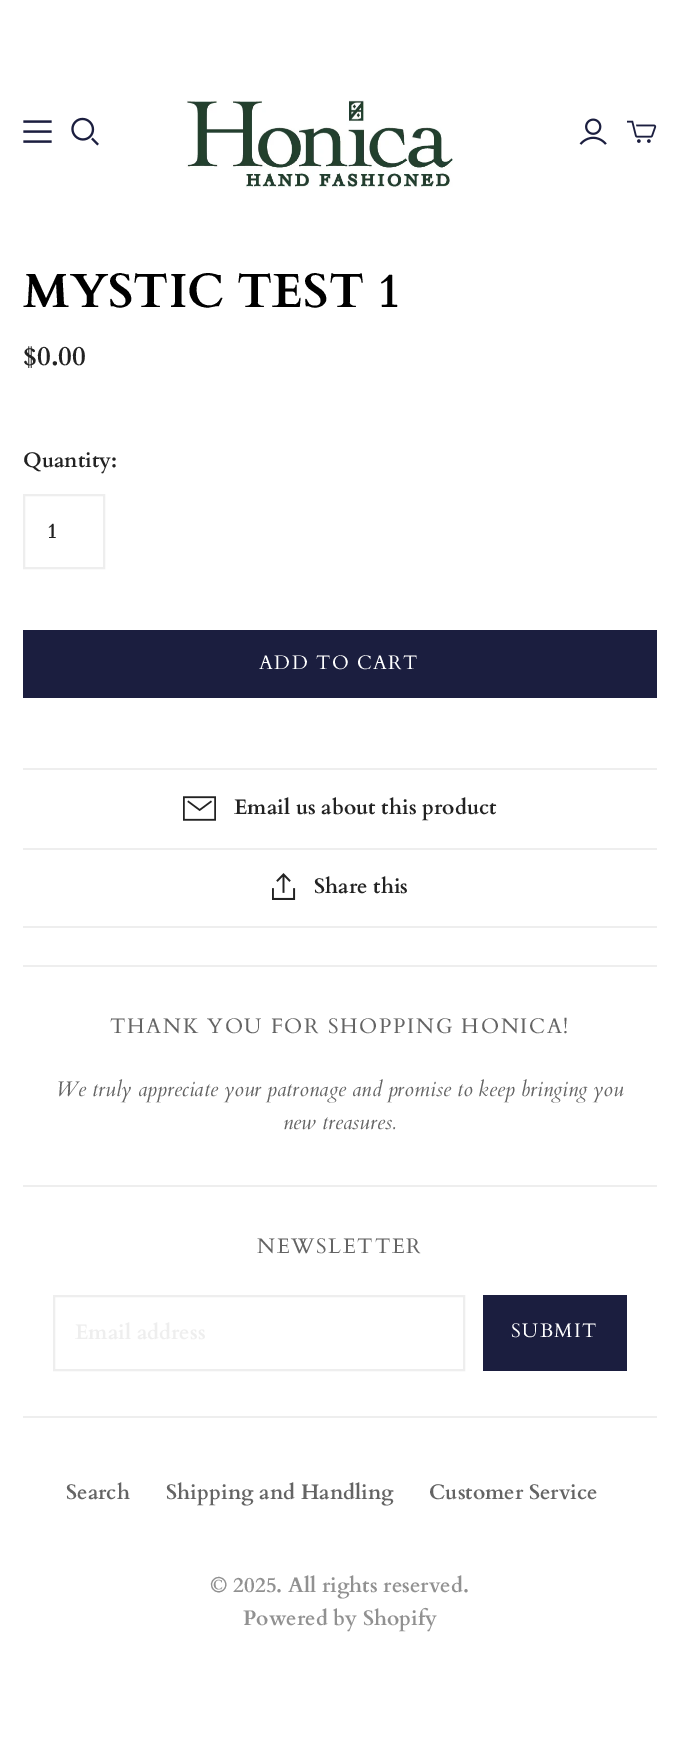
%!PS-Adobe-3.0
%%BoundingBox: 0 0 679 1748
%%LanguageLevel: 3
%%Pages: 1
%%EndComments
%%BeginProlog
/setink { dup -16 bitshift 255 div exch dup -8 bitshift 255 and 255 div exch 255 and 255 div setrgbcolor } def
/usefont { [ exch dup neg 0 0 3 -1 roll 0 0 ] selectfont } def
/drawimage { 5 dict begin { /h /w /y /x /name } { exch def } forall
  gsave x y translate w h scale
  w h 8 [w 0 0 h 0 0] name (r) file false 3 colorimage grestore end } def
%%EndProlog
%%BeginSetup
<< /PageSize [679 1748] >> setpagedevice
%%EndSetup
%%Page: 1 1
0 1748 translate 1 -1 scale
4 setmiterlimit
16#FFFFFF setink
0 0 679 1748 rectfill
(img1.raw) 186 100 267 88 drawimage
(img2.raw) 23 120 29 23 drawimage
(img3.raw) 71 117 28 29 drawimage
(img4.raw) 579 118 28 27 drawimage
(img5.raw) 627 120 30 23 drawimage
/Cardo-Bold 48 usefont
16#000000 setink
23 307 moveto (MYSTIC TEST 1) show
/Cardo-Bold 27 usefont
16#222222 setink
23 365 moveto ($0.00) show
/Cardo-Bold 21 usefont
23 467 moveto (Quantity:) show
16#EEEEEE setink
2 setlinewidth
24 495 80 73 rectstroke
16#222222 setink
47 538 moveto (1) show
16#1B1E3F setink
23 630 634 68 rectfill
/Cardo-Regular 19.5 usefont
16#FFFFFF setink
259 669 moveto 1.5 0 (ADD TO CART) ashow
16#EEEEEE setink
23 768 634 2 rectfill
23 926 634 2 rectfill
(img6.raw) 183 796 33 25 drawimage
/Cardo-Bold 21 usefont
16#222222 setink
234 814 moveto (Email us about this product) show
16#EEEEEE setink
23 848 634 2 rectfill
(img7.raw) 272 873 24 27 drawimage
16#222222 setink
314 893 moveto (Share this) show
16#EEEEEE setink
23 965 634 2 rectfill
23 1416 634 2 rectfill
/Cardo-Regular 21 usefont
16#646464 setink
110 1033 moveto 1.7 0 (THANK YOU FOR SHOPPING HONICA!) ashow
/Cardo-Italic 21 usefont
56 1096 moveto (We truly appreciate your patronage and promise to keep bringing you) show
283 1129 moveto (new treasures.) show
16#EEEEEE setink
23 1185 634 2 rectfill
/Cardo-Regular 21 usefont
16#646464 setink
257 1253 moveto 1.7 0 (NEWSLETTER) ashow
16#EEEEEE setink
54 1296 410 74 rectstroke
/Cardo-Bold 21 usefont
75 1339 moveto (Email address) show
16#1B1E3F setink
483 1295 144 76 rectfill
/Cardo-Regular 19.5 usefont
16#FFFFFF setink
511 1337 moveto 1.5 0 (SUBMIT) ashow
/Cardo-Bold 21 usefont
16#646464 setink
[
    [(Search) 66 1499]
    [(Shipping and Handling) 166 1499]
    [(Customer Service) 429 1499]
] { aload pop moveto show } forall
16#919191 setink
210 1592 moveto (© 2025. All rights reserved.) show
243 1625 moveto (Powered by Shopify) show
showpage
%%EOF
